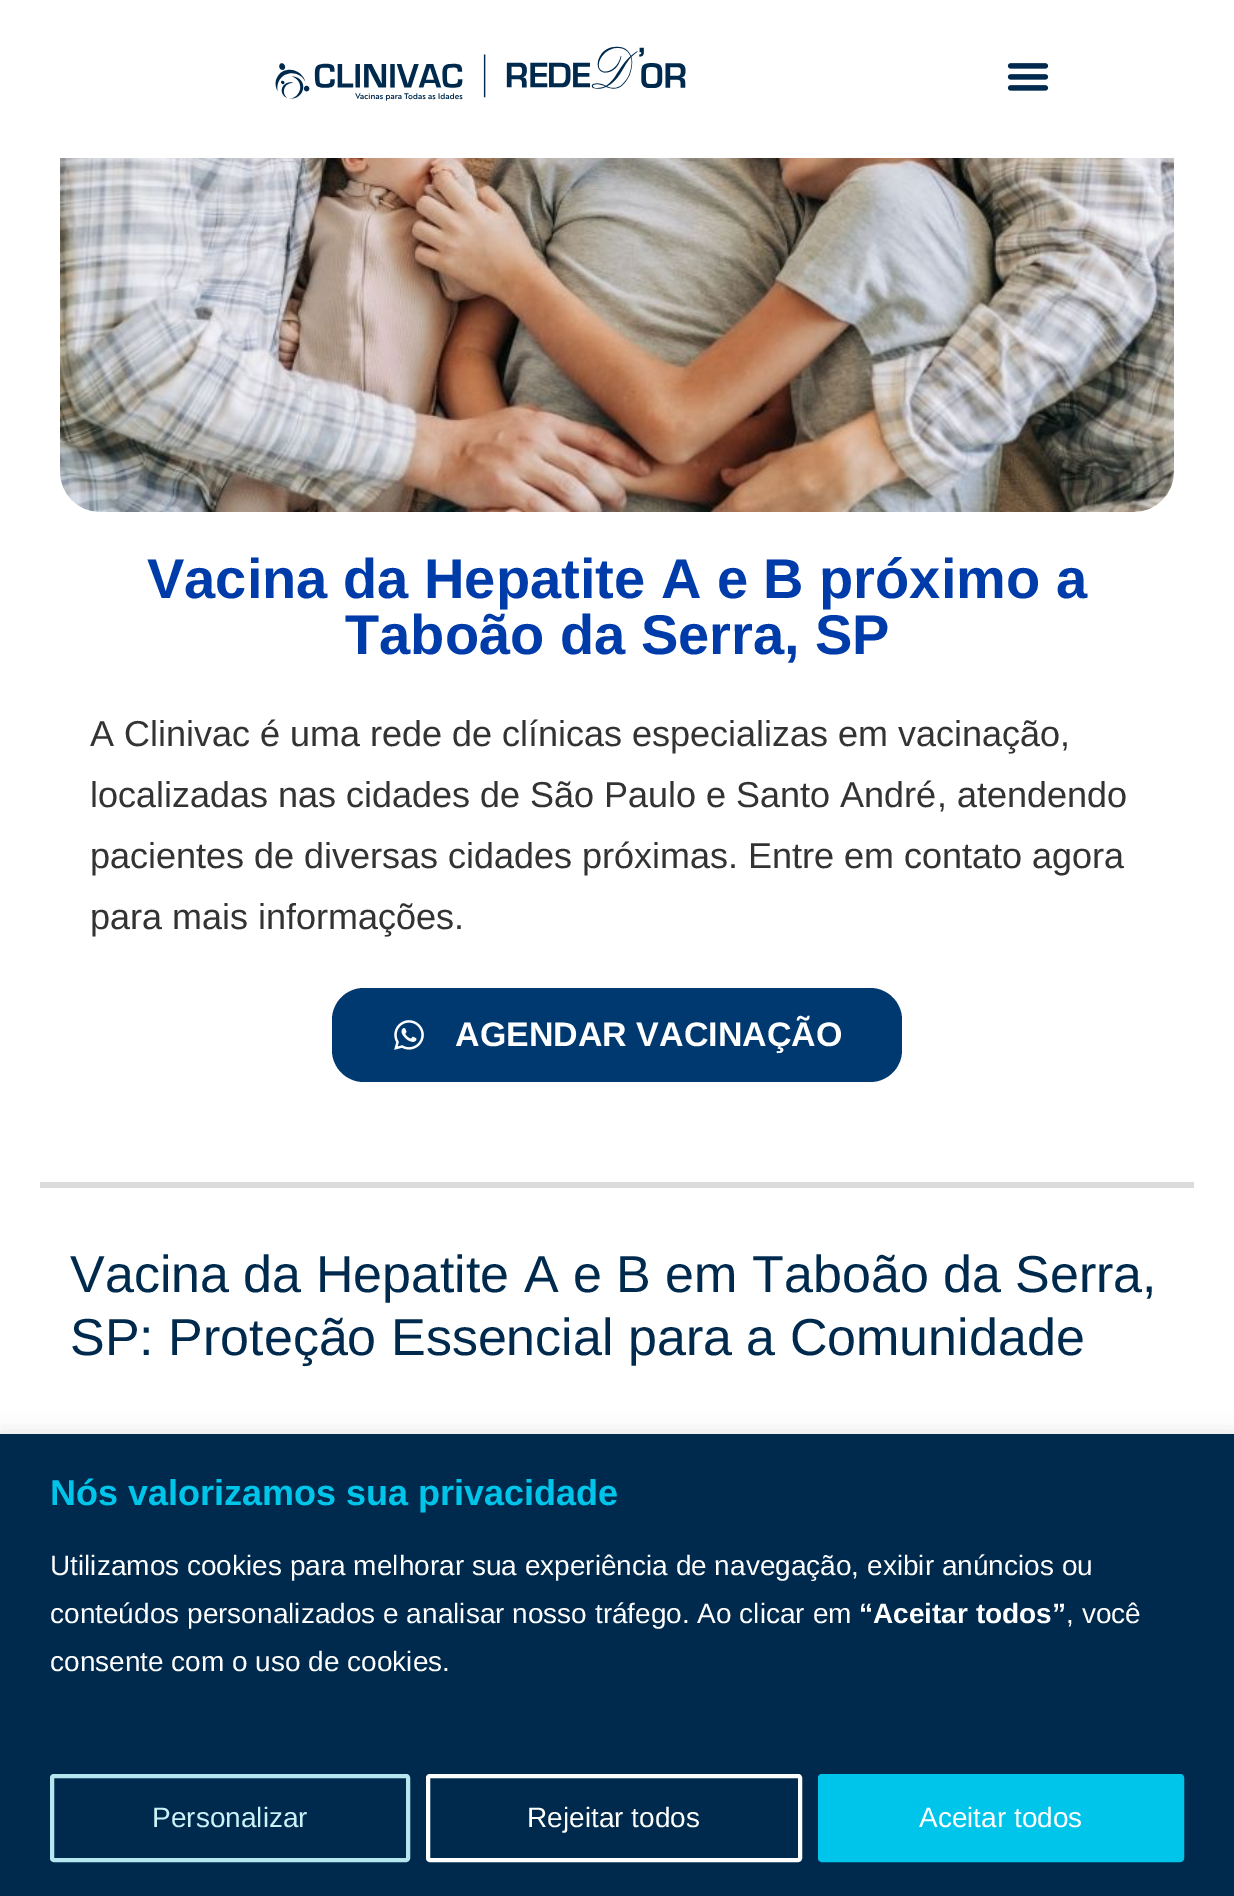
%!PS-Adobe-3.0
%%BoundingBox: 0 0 1234 1896
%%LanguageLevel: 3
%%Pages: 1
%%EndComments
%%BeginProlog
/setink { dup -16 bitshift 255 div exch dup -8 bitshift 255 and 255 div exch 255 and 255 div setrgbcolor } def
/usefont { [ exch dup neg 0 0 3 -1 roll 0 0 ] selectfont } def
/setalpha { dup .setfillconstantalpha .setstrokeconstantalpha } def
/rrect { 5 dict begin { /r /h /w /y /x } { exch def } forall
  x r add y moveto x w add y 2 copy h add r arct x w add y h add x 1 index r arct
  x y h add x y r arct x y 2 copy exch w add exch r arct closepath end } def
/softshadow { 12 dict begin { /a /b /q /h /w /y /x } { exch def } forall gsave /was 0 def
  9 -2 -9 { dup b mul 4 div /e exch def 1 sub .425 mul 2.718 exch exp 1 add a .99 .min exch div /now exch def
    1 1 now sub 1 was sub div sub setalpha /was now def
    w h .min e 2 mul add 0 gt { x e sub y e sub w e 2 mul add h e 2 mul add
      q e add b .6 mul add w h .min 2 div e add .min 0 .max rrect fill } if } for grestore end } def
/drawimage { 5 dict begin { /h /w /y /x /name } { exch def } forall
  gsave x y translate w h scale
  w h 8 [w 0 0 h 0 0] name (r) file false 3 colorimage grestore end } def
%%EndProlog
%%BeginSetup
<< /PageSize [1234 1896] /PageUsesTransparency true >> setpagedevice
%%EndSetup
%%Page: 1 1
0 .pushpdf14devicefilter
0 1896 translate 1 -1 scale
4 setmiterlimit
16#FFFFFF setink
0 0 1234 1896 rectfill
(img1.raw) 275 46 411 55 drawimage
(img2.raw) 1007 63 42 28 drawimage
16#DBDBDB setink
40 1182 1154 6 rectfill
(img3.raw) 60 158 1114 354 drawimage
/LiberationSans-Bold 56 usefont
16#003BAA setink
147 598 moveto (Vacina da Hepatite A e B próximo a) show
345 654 moveto (Taboão da Serra, SP) show
/LiberationSans-Regular 36 usefont
16#333333 setink
[
    [(A Clinivac é uma rede de clínicas especializas em vacinação,) 90 746]
    [(localizadas nas cidades de São Paulo e Santo André, atendendo) 90 807]
    [(pacientes de diversas cidades próximas. Entre em contato agora) 90 868]
    [(para mais informações.) 90 929]
] { aload pop moveto show } forall
16#003970 setink
332 988 570 94 32 rrect fill
(img4.raw) 394 1020 30 30 drawimage
/LiberationSans-Bold 34 usefont
16#FFFFFF setink
455 1046 moveto (AGENDAR VACINAÇÃO) show
/LiberationSans-Regular 52 usefont
16#002A4D setink
70 1292 moveto (Vacina da Hepatite A e B em Taboão da Serra,) show
70 1355 moveto (SP: Proteção Essencial para a Comunidade) show
16#ACABAB setink
0 1432 1234 462 0 10 0.3 softshadow
16#002A4D setink
0 1434 1234 462 rectfill
/LiberationSans-Bold 36 usefont
16#00C5EB setink
50 1505 moveto (Nós valorizamos sua privacidade) show
/LiberationSans-Regular 28 usefont
16#FFFFFF setink
50 1575 moveto (Utilizamos cookies para melhorar sua experiência de navegação, exibir anúncios ou) show
50 1623 moveto (conteúdos personalizados e analisar nosso tráfego. Ao clicar em) show
/LiberationSans-Bold 28 usefont
859 1623 moveto (“Aceitar todos”) show
/LiberationSans-Regular 28 usefont
1066 1623 moveto (, você) show
50 1671 moveto (consente com o uso de cookies.) show
16#B5E7F1 setink
4 setlinewidth
52 1776 356 84 2 rrect stroke
16#CCF2F9 setink
152 1827 moveto (Personalizar) show
16#FFFFFF setink
428 1776 372 84 2 rrect stroke
527 1827 moveto (Rejeitar todos) show
16#00C5EB setink
820 1776 362 84 2 rrect gsave fill grestore
stroke
16#FFFFFF setink
919 1827 moveto (Aceitar todos) show
.poppdf14devicefilter showpage
%%EOF
